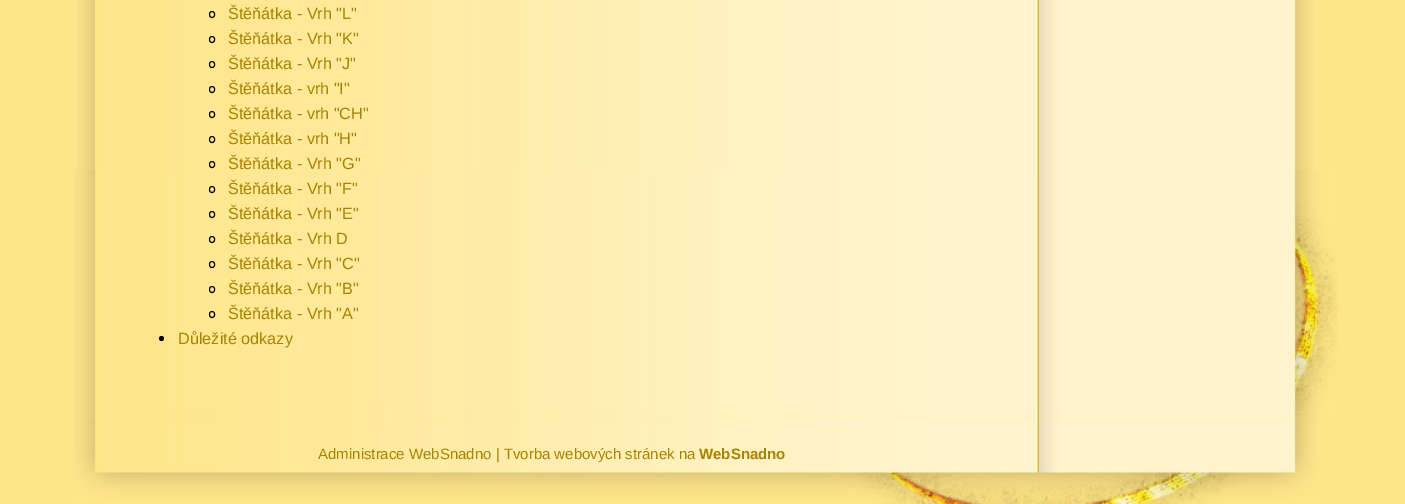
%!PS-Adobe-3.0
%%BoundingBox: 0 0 1405 504
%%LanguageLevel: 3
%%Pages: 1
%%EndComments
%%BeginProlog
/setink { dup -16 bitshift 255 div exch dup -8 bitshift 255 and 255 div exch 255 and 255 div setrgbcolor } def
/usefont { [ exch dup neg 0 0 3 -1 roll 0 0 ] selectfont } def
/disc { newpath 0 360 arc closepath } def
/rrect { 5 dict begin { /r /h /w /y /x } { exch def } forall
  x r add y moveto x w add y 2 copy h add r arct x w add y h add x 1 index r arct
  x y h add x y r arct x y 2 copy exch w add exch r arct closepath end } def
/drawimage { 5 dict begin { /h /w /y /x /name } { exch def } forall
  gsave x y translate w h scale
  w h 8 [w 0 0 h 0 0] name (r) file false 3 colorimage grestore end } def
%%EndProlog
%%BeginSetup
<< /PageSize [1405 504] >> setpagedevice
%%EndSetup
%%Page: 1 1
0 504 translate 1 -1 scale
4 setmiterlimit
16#FFE58A setink
0 0 1405 504 rectfill
(img1.raw) 76 0 1238 413 drawimage
(img2.raw) 74 170 1264 243 drawimage
16#000000 setink
209.5 11.5 5 6 2.5 rrect stroke
/LiberationSans-Regular 16.25 usefont
16#A88301 setink
228 19 moveto (Štěňátka - Vrh "L") show
16#000000 setink
209.5 36.5 5 6 2.5 rrect stroke
16#A88301 setink
228 44 moveto (Štěňátka - Vrh "K") show
16#000000 setink
209.5 61.5 5 6 2.5 rrect stroke
16#A88301 setink
228 69 moveto (Štěňátka - Vrh "J") show
16#000000 setink
209.5 86.5 5 6 2.5 rrect stroke
16#A88301 setink
228 94 moveto (Štěňátka - vrh "I") show
16#000000 setink
209.5 111.5 5 6 2.5 rrect stroke
16#A88301 setink
228 119 moveto (Štěňátka - vrh "CH") show
16#000000 setink
209.5 136.5 5 6 2.5 rrect stroke
16#A88301 setink
228 144 moveto (Štěňátka - vrh "H") show
16#000000 setink
209.5 161.5 5 6 2.5 rrect stroke
16#A88301 setink
228 169 moveto (Štěňátka - Vrh "G") show
16#000000 setink
209.5 186.5 5 6 2.5 rrect stroke
16#A88301 setink
228 194 moveto (Štěňátka - Vrh "F") show
16#000000 setink
209.5 211.5 5 6 2.5 rrect stroke
16#A88301 setink
228 219 moveto (Štěňátka - Vrh "E") show
16#000000 setink
209.5 236.5 5 6 2.5 rrect stroke
16#A88301 setink
228 244 moveto (Štěňátka - Vrh D) show
16#000000 setink
209.5 261.5 5 6 2.5 rrect stroke
16#A88301 setink
228 269 moveto (Štěňátka - Vrh "C") show
16#000000 setink
209.5 286.5 5 6 2.5 rrect stroke
16#A88301 setink
228 294 moveto (Štěňátka - Vrh "B") show
16#000000 setink
209.5 311.5 5 6 2.5 rrect stroke
16#A88301 setink
228 319 moveto (Štěňátka - Vrh "A") show
16#000000 setink
161.5 338.5 2.5 disc fill
16#A88301 setink
178 344 moveto (Důležité odkazy) show
(img3.raw) 74 412 1243 6 drawimage
(img4.raw) 74 417 1243 87 drawimage
/LiberationSans-Regular 15 usefont
318 459 moveto (Administrace WebSnadno | Tvorba webových stránek na) show
/LiberationSans-Bold 15 usefont
699 459 moveto (WebSnadno) show
showpage
%%EOF
